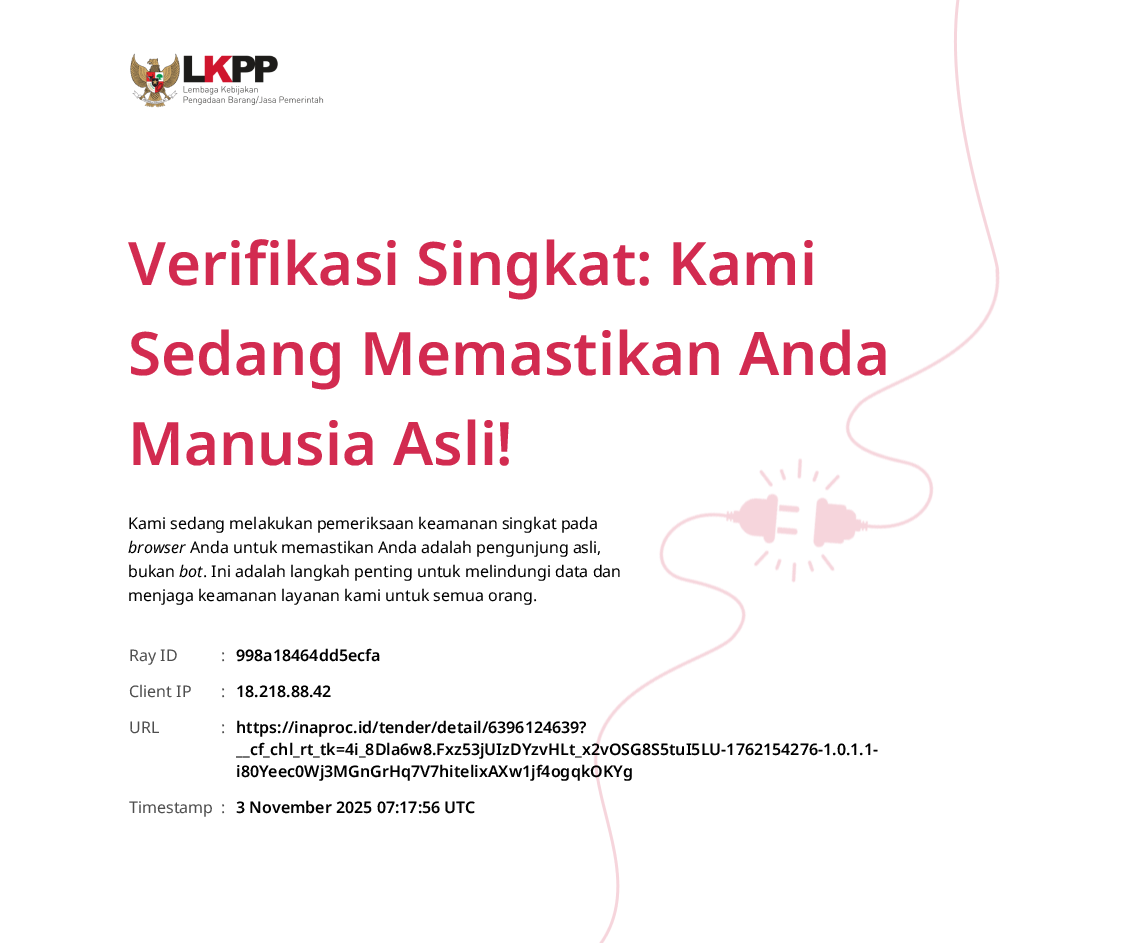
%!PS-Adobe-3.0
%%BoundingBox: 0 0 1137 943
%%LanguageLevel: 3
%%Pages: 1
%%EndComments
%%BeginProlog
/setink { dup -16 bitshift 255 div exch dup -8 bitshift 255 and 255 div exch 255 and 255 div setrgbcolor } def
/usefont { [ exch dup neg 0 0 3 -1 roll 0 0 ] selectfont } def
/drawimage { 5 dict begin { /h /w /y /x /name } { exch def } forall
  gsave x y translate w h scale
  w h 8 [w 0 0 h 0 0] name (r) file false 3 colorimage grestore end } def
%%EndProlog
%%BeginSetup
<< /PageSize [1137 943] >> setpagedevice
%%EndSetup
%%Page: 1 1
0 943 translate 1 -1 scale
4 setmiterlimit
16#FFFFFF setink
0 0 1137 943 rectfill
(img1.raw) 593 0 407 943 drawimage
(img2.raw) 130 53 194 55 drawimage
/NotoSans-SemiBold 60 usefont
16#D22B50 setink
[
    [(Verifikasi Singkat: Kami) 128 285]
    [(Sedang Memastikan Anda) 128 375]
    [(Manusia Asli!) 128 465]
] { aload pop moveto show } forall
/NotoSans-Regular 16 usefont
16#000000 setink
128 529 moveto (Kami sedang melakukan pemeriksaan keamanan singkat pada) show
/NotoSans-Italic 16 usefont
128 553 moveto (browser) show
/NotoSans-Regular 16 usefont
190 553 moveto (Anda untuk memastikan Anda adalah pengunjung asli,) show
128 577 moveto (bukan) show
/NotoSans-Italic 16 usefont
179 577 moveto (bot) show
/NotoSans-Regular 16 usefont
203 577 moveto (. Ini adalah langkah penting untuk melindungi data dan) show
128 601 moveto (menjaga keamanan layanan kami untuk semua orang.) show
16#4F4F4F setink
129 661 moveto (Ray ID) show
221 661 moveto (:) show
/NotoSans-SemiBold 16 usefont
16#000000 setink
236 661 moveto (998a18464dd5ecfa) show
/NotoSans-Regular 16 usefont
16#4F4F4F setink
129 697 moveto (Client IP) show
221 697 moveto (:) show
/NotoSans-SemiBold 16 usefont
16#000000 setink
236 697 moveto (18.218.88.42) show
/NotoSans-Regular 16 usefont
16#4F4F4F setink
129 733 moveto (URL) show
221 733 moveto (:) show
/NotoSans-SemiBold 16 usefont
16#000000 setink
[
    [(https://inaproc.id/tender/detail/6396124639?) 236 733]
    [(__cf_chl_rt_tk=4i_8Dla6w8.Fxz53jUIzDYzvHLt_x2vOSG8S5tuI5LU-1762154276-1.0.1.1-) 236 755]
    [(i80Yeec0Wj3MGnGrHq7V7hitelixAXw1jf4ogqkOKYg) 236 777]
] { aload pop moveto show } forall
/NotoSans-Regular 16 usefont
16#4F4F4F setink
129 813 moveto (Timestamp) show
221 813 moveto (:) show
/NotoSans-SemiBold 16 usefont
16#000000 setink
236 813 moveto (3 November 2025 07:17:56 UTC) show
showpage
%%EOF
